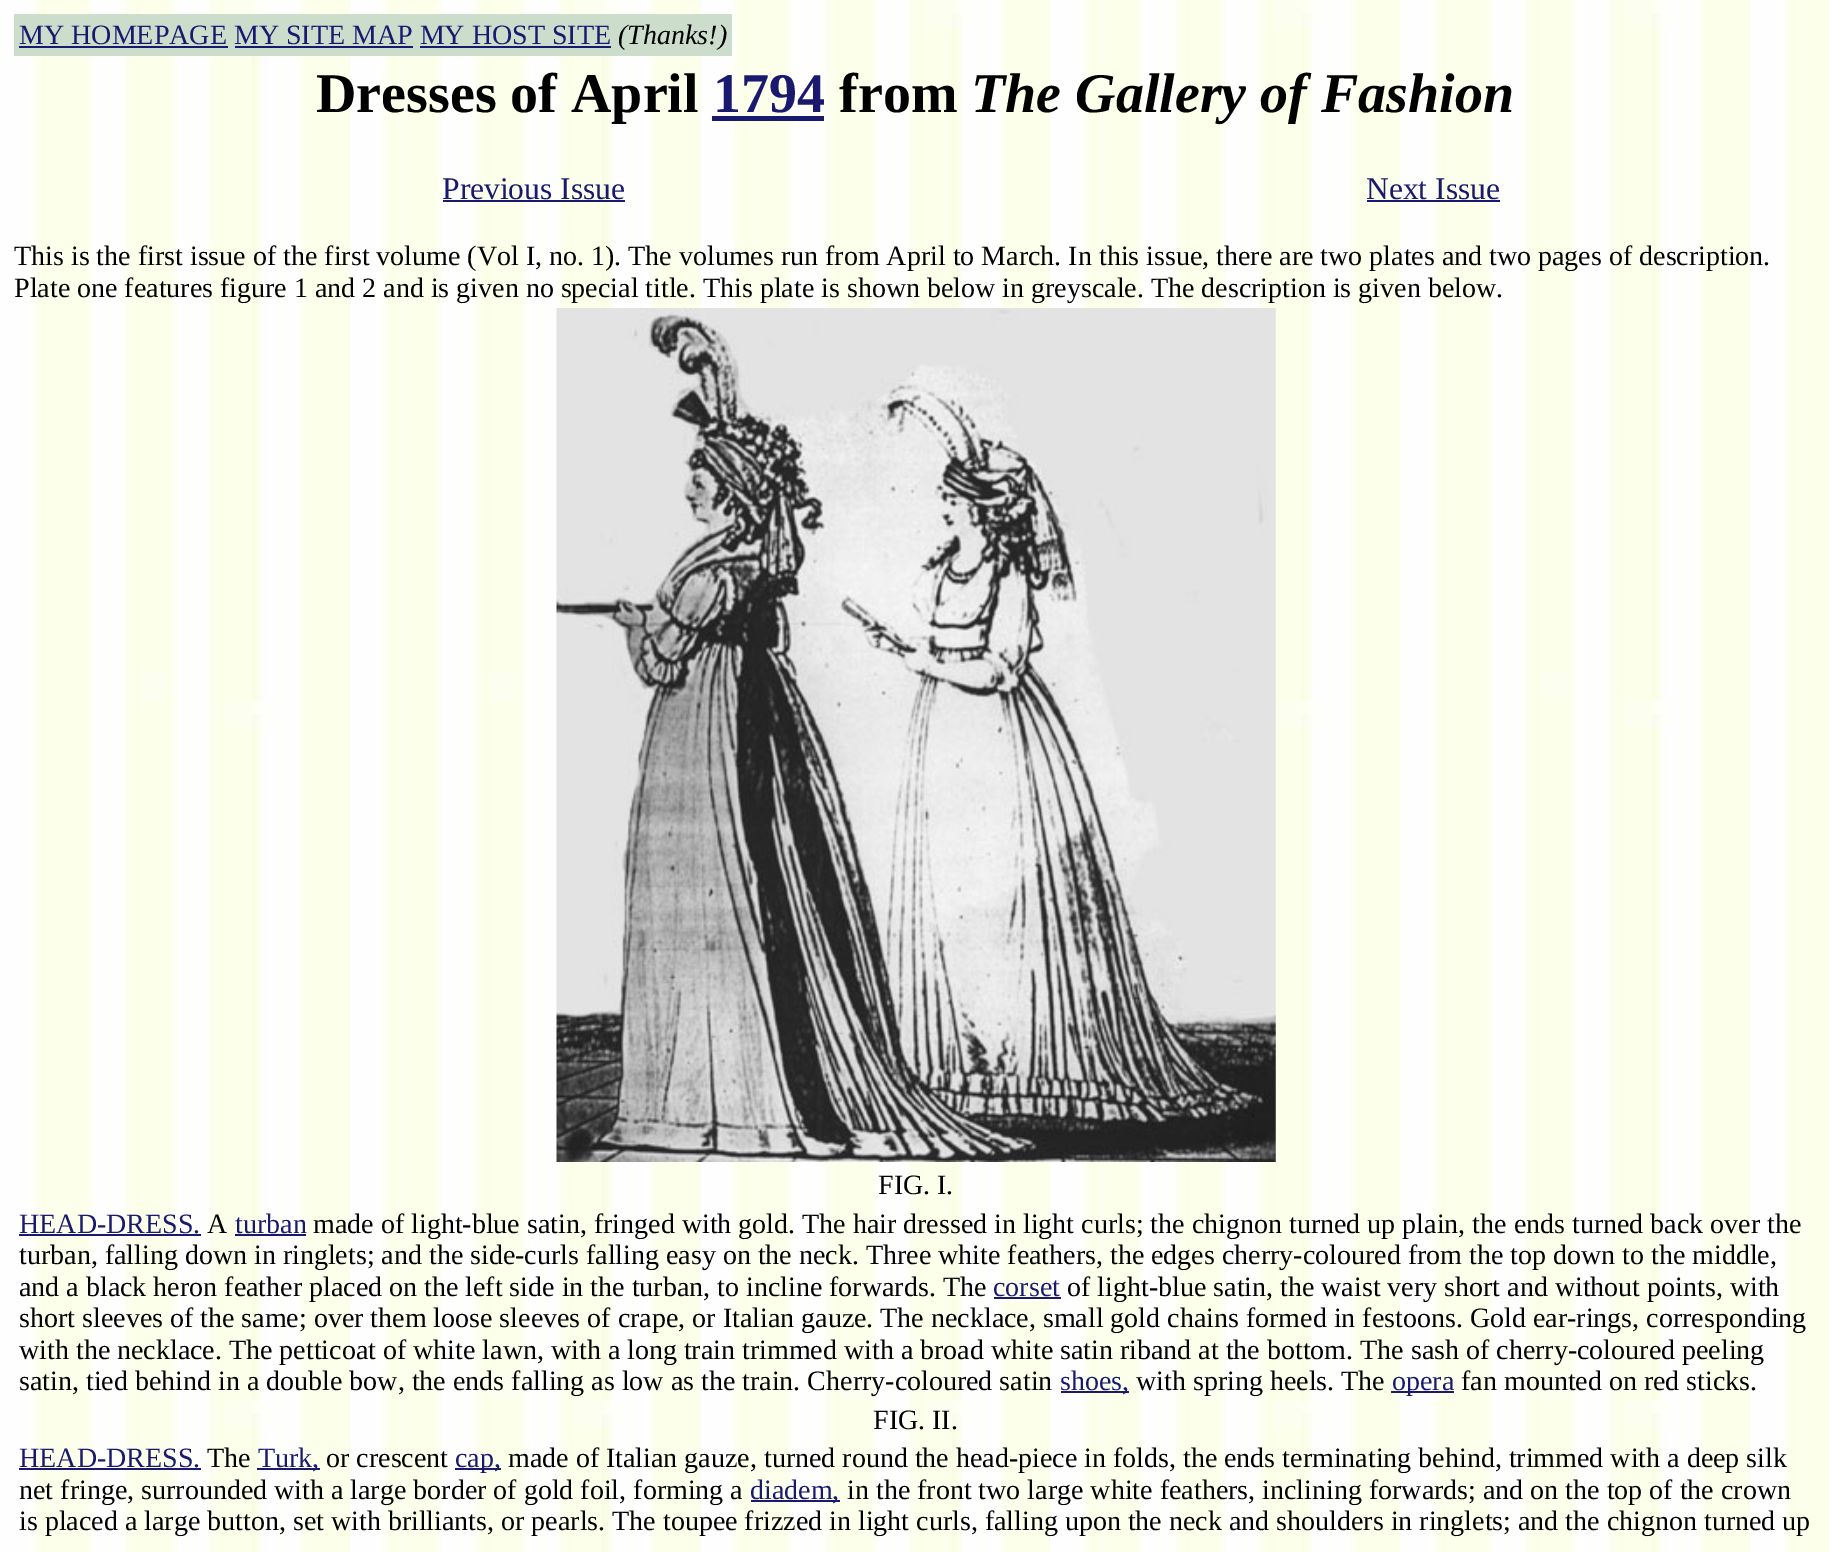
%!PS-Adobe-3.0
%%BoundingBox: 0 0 1829 1552
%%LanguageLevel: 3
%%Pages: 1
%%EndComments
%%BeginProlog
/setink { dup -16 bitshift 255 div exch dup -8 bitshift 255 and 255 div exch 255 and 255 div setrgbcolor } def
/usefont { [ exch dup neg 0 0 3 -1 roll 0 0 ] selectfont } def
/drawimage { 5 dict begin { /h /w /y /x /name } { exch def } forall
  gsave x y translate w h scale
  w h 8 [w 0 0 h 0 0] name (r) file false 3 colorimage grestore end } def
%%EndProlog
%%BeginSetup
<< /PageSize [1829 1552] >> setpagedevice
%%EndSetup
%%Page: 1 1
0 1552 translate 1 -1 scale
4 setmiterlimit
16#FFFFFF setink
0 0 1829 1552 rectfill
(img1.raw) 0 0 1829 1552 drawimage
16#CCDDCC setink
14 14 718 42 rectfill
/LiberationSerif-Regular 28 usefont
16#191970 setink
19 44 moveto (MY HOMEPAGE MY SITE MAP MY HOST SITE) show
19 46 209 2 rectfill
420 46 191 2 rectfill
/LiberationSerif-Italic 28 usefont
16#000000 setink
618 44 moveto (\(Thanks!\)) show
16#191970 setink
235 46 178 2 rectfill
/LiberationSerif-Bold 56 usefont
16#000000 setink
316 112 moveto (Dresses of April) show
16#191970 setink
713 112 moveto (1794) show
712 116 112 5 rectfill
16#000000 setink
839 112 moveto (from) show
/LiberationSerif-BoldItalic 56 usefont
971 112 moveto (The Gallery of Fashion) show
/LiberationSerif-Regular 31.5 usefont
16#191970 setink
442 199 moveto (Previous Issue) show
443 200 182 2 rectfill
1366 199 moveto (Next Issue) show
1367 200 133 2 rectfill
/LiberationSerif-Regular 28 usefont
16#000000 setink
14 265 moveto (This is the first issue of the first volume \(Vol I, no. 1\). The volumes run from April to March. In this issue, there are two plates and two pages of description.) show
14 297 moveto (Plate one features figure 1 and 2 and is given no special title. This plate is shown below in greyscale. The description is given below.) show
(img2.raw) 556 308 720 854 drawimage
878 1194 moveto (FIG. I.) show
16#191970 setink
19 1233 moveto (HEAD-DRESS.) show
19 1234 182 2 rectfill
16#000000 setink
207 1233 moveto (A) show
16#191970 setink
235 1233 moveto (turban) show
235 1234 71 2 rectfill
16#000000 setink
[
    [(made of light-blue satin, fringed with gold. The hair dressed in light curls; the chignon turned up plain, the ends turned back over the) 313 1233]
    [(turban, falling down in ringlets; and the side-curls falling easy on the neck. Three white feathers, the edges cherry-coloured from the top down to the middle,) 19 1264]
    [(and a black heron feather placed on the left side in the turban, to incline forwards. The) 19 1296]
] { aload pop moveto show } forall
16#191970 setink
993 1296 moveto (corset) show
994 1297 67 2 rectfill
16#000000 setink
[
    [(of light-blue satin, the waist very short and without points, with) 1067 1296]
    [(short sleeves of the same; over them loose sleeves of crape, or Italian gauze. The necklace, small gold chains formed in festoons. Gold ear-rings, corresponding) 19 1327]
    [(with the necklace. The petticoat of white lawn, with a long train trimmed with a broad white satin riband at the bottom. The sash of cherry-coloured peeling) 19 1359]
    [(satin, tied behind in a double bow, the ends falling as low as the train. Cherry-coloured satin) 19 1390]
] { aload pop moveto show } forall
16#191970 setink
1061 1391 68 2 rectfill
1060 1390 moveto (shoes,) show
16#000000 setink
1136 1390 moveto (with spring heels. The) show
16#191970 setink
1391 1391 63 2 rectfill
1392 1390 moveto (opera) show
16#000000 setink
1461 1390 moveto (fan mounted on red sticks.) show
873 1429 moveto (FIG. II.) show
16#191970 setink
19 1467 moveto (HEAD-DRESS.) show
19 1468 182 2 rectfill
16#000000 setink
207 1467 moveto (The) show
16#191970 setink
257 1468 63 2 rectfill
258 1467 moveto (Turk,) show
16#000000 setink
326 1467 moveto (or crescent) show
16#191970 setink
455 1468 46 2 rectfill
455 1467 moveto (cap,) show
16#000000 setink
508 1467 moveto (made of Italian gauze, turned round the head-piece in folds, the ends terminating behind, trimmed with a deep silk) show
19 1499 moveto (net fringe, surrounded with a large border of gold foil, forming a) show
16#191970 setink
751 1500 89 2 rectfill
750 1499 moveto (diadem,) show
16#000000 setink
847 1499 moveto (in the front two large white feathers, inclining forwards; and on the top of the crown) show
19 1530 moveto (is placed a large button, set with brilliants, or pearls. The toupee frizzed in light curls, falling upon the neck and shoulders in ringlets; and the chignon turned up) show
showpage
%%EOF
